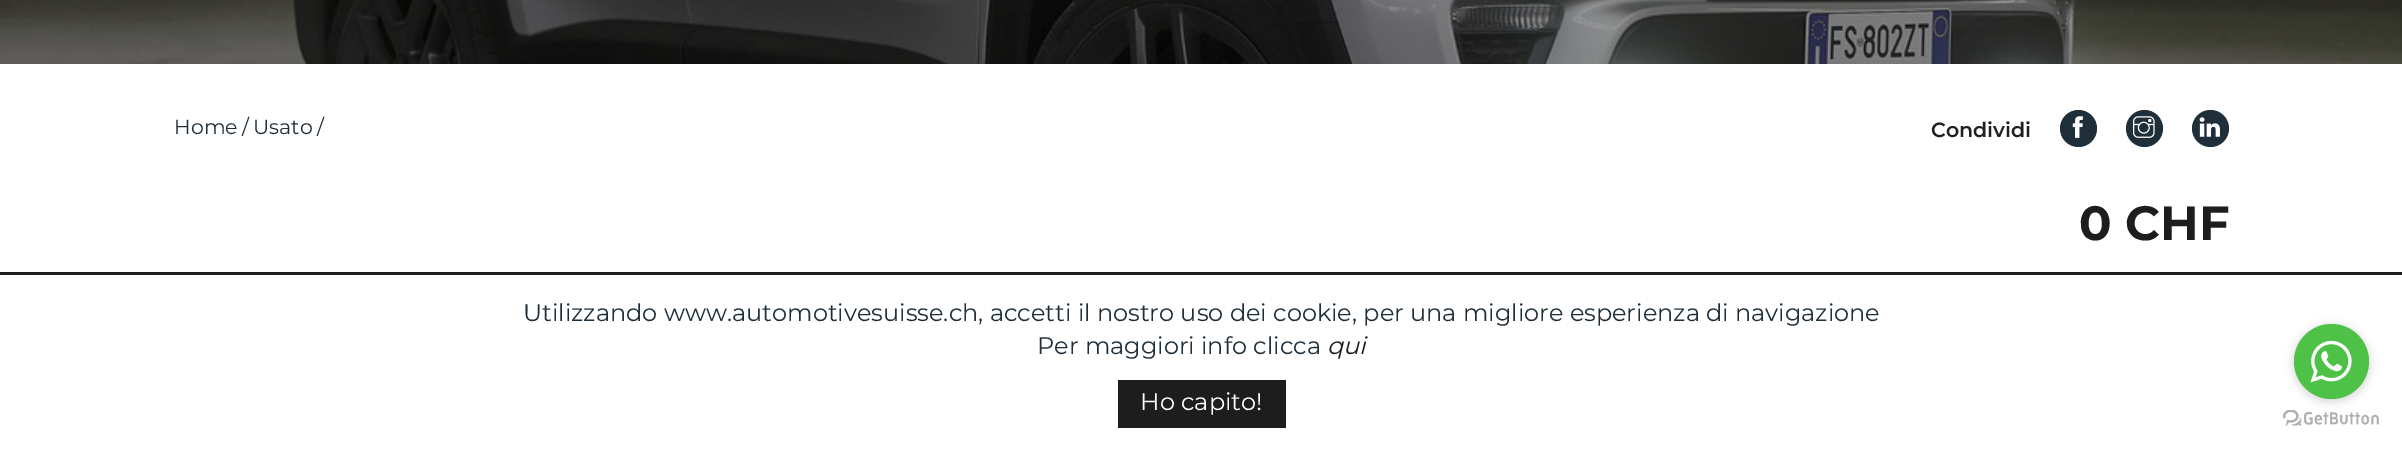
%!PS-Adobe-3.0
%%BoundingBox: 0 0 2402 449
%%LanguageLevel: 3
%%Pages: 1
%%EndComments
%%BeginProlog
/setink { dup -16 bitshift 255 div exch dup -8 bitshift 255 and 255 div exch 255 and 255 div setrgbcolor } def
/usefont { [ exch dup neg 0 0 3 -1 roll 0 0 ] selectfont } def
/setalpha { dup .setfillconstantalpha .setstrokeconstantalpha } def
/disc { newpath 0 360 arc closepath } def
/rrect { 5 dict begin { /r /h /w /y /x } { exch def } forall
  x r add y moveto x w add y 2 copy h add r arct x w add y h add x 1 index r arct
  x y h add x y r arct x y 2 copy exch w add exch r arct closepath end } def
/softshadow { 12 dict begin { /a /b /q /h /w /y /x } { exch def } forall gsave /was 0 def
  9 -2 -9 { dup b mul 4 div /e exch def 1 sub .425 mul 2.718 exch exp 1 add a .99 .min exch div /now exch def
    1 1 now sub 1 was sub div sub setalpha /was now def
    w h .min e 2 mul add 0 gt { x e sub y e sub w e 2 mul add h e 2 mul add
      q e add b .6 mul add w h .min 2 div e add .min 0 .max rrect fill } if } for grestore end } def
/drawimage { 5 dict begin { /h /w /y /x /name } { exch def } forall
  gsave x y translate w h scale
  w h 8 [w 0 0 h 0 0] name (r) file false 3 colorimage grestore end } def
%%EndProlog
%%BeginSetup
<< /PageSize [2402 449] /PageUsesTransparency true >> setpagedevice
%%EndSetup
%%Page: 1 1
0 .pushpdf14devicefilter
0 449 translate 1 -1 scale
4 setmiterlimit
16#FFFFFF setink
0 0 2402 449 rectfill
(img1.raw) 0 0 2402 64 drawimage
/Montserrat-Regular 20.5 usefont
16#1F2F39 setink
[
    [(Home) 174 134]
    [(/) 242 134]
    [(Usato) 253 134]
    [(/) 317 134]
] { aload pop moveto show } forall
/Montserrat-SemiBold 20.5 usefont
16#231F20 setink
1931 137 moveto (Condividi) show
16#1F2F39 setink
2078.5 128.5 18.5 disc fill
(img2.raw) 2072 116 11 22 drawimage
2144.5 128.5 18.5 disc fill
(img3.raw) 2133 116 22 22 drawimage
2210.5 128.5 18.5 disc fill
(img4.raw) 2199 117 21 20 drawimage
/Montserrat-Bold 48 usefont
16#1D1D1D setink
2079 240 moveto (0 CHF) show
0 272 2402 3 rectfill
/Montserrat-Regular 24 usefont
16#1F2F39 setink
523 321 moveto (Utilizzando www.automotivesuisse.ch, accetti il nostro uso dei cookie, per una migliore esperienza di navigazione) show
1037 354 moveto (Per maggiori info clicca) show
/Montserrat-Italic 24 usefont
16#1D1D1D setink
1327 354 moveto (qui) show
1118 380 168 48 rectfill
/Montserrat-Regular 24 usefont
16#FFFFFF setink
1140 410 moveto (Ho capito!) show
(img6.raw) 2283 410 96 16 drawimage
16#888888 setink
2294 326 75 75 37.5 5 0.4 softshadow
16#4DC247 setink
2331.5 361.5 37.5 disc fill
(img5.raw) 2310 340 42 43 drawimage
.poppdf14devicefilter showpage
%%EOF
